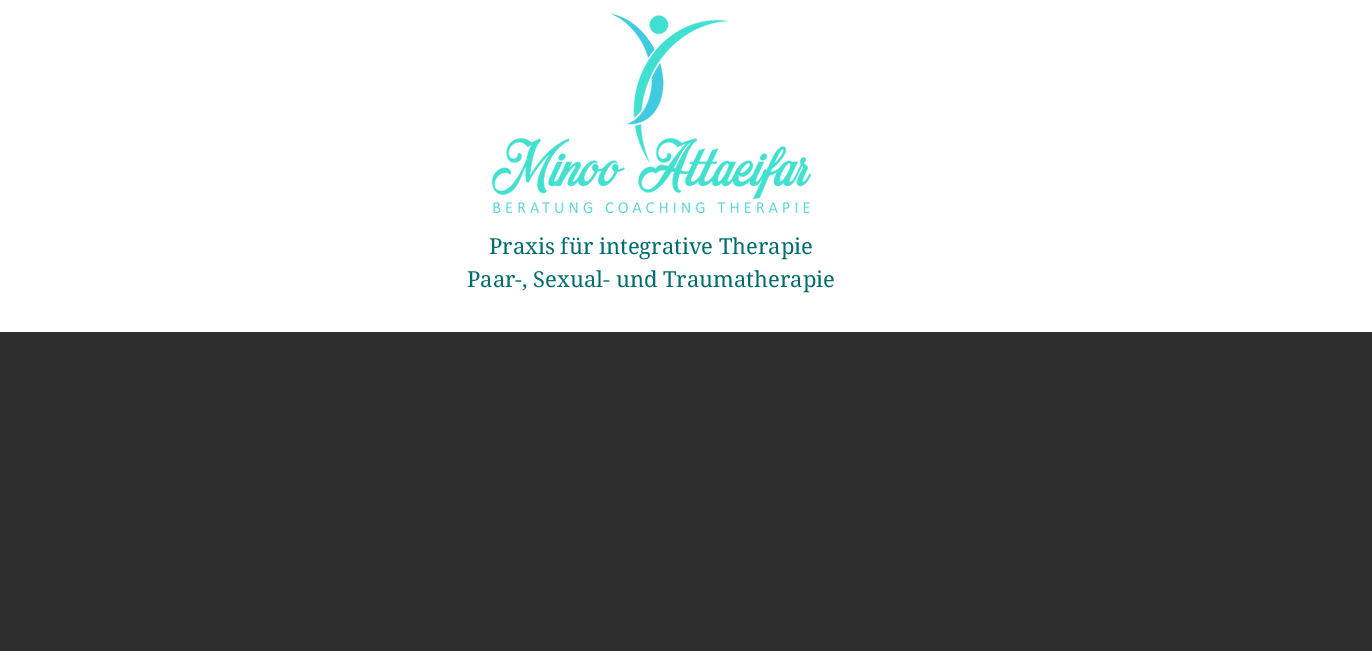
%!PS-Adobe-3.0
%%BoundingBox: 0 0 1372 651
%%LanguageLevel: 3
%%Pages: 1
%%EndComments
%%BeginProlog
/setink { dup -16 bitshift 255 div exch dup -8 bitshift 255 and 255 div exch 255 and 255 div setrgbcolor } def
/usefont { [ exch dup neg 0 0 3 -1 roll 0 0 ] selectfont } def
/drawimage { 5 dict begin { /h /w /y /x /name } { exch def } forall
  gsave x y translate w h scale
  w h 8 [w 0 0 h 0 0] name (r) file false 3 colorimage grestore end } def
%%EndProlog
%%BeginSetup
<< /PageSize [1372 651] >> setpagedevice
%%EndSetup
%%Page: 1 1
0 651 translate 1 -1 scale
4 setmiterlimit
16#FFFFFF setink
0 0 1372 651 rectfill
(img1.raw) 491 13 321 201 drawimage
/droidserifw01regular-Regular 22 usefont
16#006C6D setink
489 254 moveto (Praxis für integrative Therapie) show
467 287 moveto (Paar-, Sexual- und Traumatherapie) show
16#2F2E2E setink
0 332 1372 319 rectfill
showpage
%%EOF
